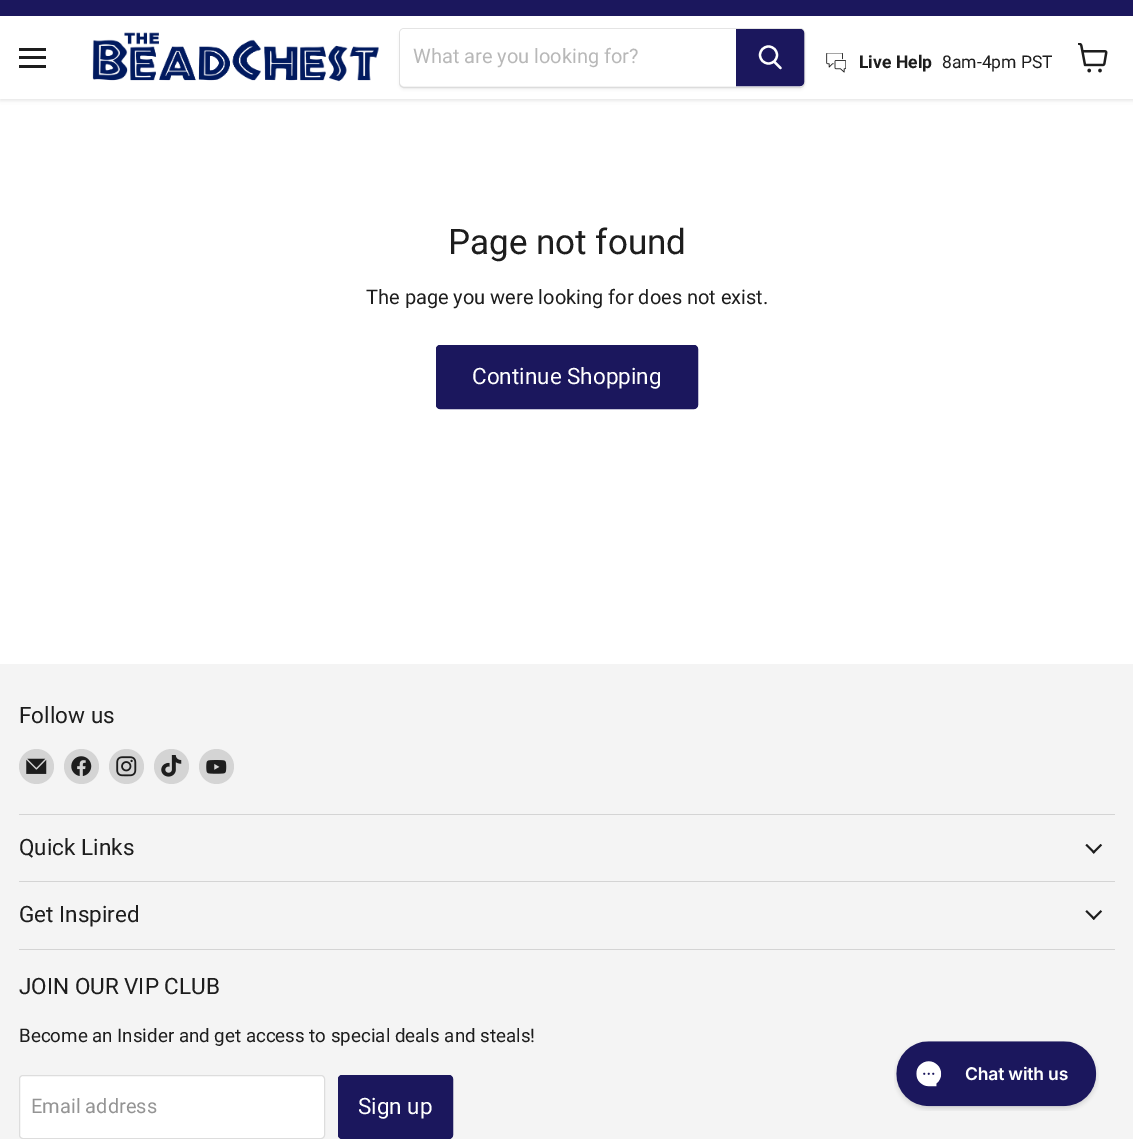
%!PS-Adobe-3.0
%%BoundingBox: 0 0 1133 1139
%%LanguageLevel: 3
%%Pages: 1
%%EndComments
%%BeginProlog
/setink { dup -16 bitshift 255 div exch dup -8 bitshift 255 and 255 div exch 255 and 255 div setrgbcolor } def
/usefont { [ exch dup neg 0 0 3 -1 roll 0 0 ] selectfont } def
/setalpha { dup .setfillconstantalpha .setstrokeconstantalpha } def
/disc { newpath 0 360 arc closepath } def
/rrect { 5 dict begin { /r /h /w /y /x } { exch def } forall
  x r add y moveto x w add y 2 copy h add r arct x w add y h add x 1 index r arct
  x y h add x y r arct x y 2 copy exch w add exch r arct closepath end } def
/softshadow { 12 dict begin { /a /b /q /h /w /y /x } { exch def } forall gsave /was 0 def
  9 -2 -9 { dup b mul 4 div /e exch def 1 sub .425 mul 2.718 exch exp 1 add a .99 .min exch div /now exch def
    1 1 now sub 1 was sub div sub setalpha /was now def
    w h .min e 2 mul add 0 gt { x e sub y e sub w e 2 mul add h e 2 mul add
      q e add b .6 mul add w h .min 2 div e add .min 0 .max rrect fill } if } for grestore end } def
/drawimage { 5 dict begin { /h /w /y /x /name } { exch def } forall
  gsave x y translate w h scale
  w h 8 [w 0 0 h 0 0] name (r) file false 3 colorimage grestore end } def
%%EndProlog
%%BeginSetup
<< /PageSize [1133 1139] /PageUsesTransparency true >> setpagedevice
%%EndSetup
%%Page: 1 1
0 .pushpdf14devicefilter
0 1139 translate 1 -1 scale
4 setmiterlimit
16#FFFFFF setink
0 0 1133 1139 rectfill
16#808080 setink
0 18 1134 82 0 2.5 0.25 softshadow
[
    [0 0 1133 16 16#1B175D]
    [0 16 1133 83 16#FFFFFF]
    [19 48 27 3 16#1D1D1D]
    [19 56 27 3 16#1D1D1D]
    [19 65 27 3 16#1D1D1D]
] { aload pop setink rectfill } forall
(img1.raw) 92 32 287 50 drawimage
16#808080 setink
399 30 406 60 5 2 0.11 softshadow
0.2 setalpha
399.5 28.5 405 59 4.5 rrect stroke
1 setalpha
16#FFFFFF setink
404 29 moveto 736 29 lineto 736 86 lineto 404 86 lineto 402 86 400 84 400 82 curveto 400 33 lineto 400 31 402 29 404 29 curveto closepath fill
/Roboto-Regular 20 usefont
16#B8B8B8 setink
413 63 moveto (What are you looking for?) show
16#1B175D setink
736.5 29.5 moveto 800 29.5 lineto 802 29.5 803.5 31 803.5 33 curveto 803.5 82 lineto 803.5 84 802 85.5 800 85.5 curveto 736.5 85.5 lineto closepath gsave fill grestore
stroke
16#FFFFFF setink
2.2 setlinewidth
1 setlinecap
780.5 68 moveto 774.5 62 lineto stroke
0 setlinecap
768.5 55 8.5 disc stroke
(img2.raw) 826 53 20 20 drawimage
/Roboto-Bold 17.5 usefont
16#1D1D1D setink
859 68 moveto (Live Help) show
/Roboto-Regular 17.5 usefont
942 68 moveto (8am-4pm PST) show
(img3.raw) 1078 43 30 30 drawimage
/Roboto-Regular 35 usefont
448 254 moveto (Page not found) show
/Roboto-Regular 20 usefont
366 304 moveto (The page you were looking for does not exist.) show
16#1B175D setink
436.5 345.5 261 63 3.5 rrect gsave fill grestore
1 setlinewidth
stroke
/Roboto-Regular 22.5 usefont
16#FFFFFF setink
472 384 moveto (Continue Shopping) show
16#F4F4F4 setink
0 664 1133 475 rectfill
16#D4D4D4 setink
19 814 1096 1 rectfill
16#1D1D1D setink
19 723 moveto (Follow us) show
16#D4D4D4 setink
36.5 766.5 17.5 disc fill
(img4.raw) 26 758 21 16 drawimage
81.5 766.5 17.5 disc fill
(img5.raw) 71 756 21 20 drawimage
126.5 766.5 17.5 disc fill
(img6.raw) 116 756 21 21 drawimage
171.5 766.5 17.5 disc fill
(img7.raw) 161 755 21 22 drawimage
216.5 766.5 17.5 disc fill
(img8.raw) 206 760 21 14 drawimage
19 881 1096 1 rectfill
16#1D1D1D setink
19 855 moveto (Quick Links) show
(img9.raw) 1085 844 18 10 drawimage
16#D4D4D4 setink
19 949 1096 1 rectfill
16#1D1D1D setink
19 922 moveto (Get Inspired) show
(img10.raw) 1085 910 18 10 drawimage
19 994 moveto (JOIN OUR VIP CLUB) show
/Roboto-Regular 18.75 usefont
19 1042 moveto (Become an Insider and get access to special deals and steals!) show
16#FFFFFF setink
19.5 1075.5 305 63 3.5 rrect gsave fill grestore
16#DDDDDD setink
stroke
/Roboto-Regular 20 usefont
16#949494 setink
31 1113 moveto (Email address) show
16#1B175D setink
338.5 1075.5 114 63 3.5 rrect gsave fill grestore
stroke
/Roboto-Regular 22.5 usefont
16#FFFFFF setink
358 1114 moveto (Sign up) show
(img11.raw) 894 1041 205 70 drawimage
.poppdf14devicefilter showpage
%%EOF
